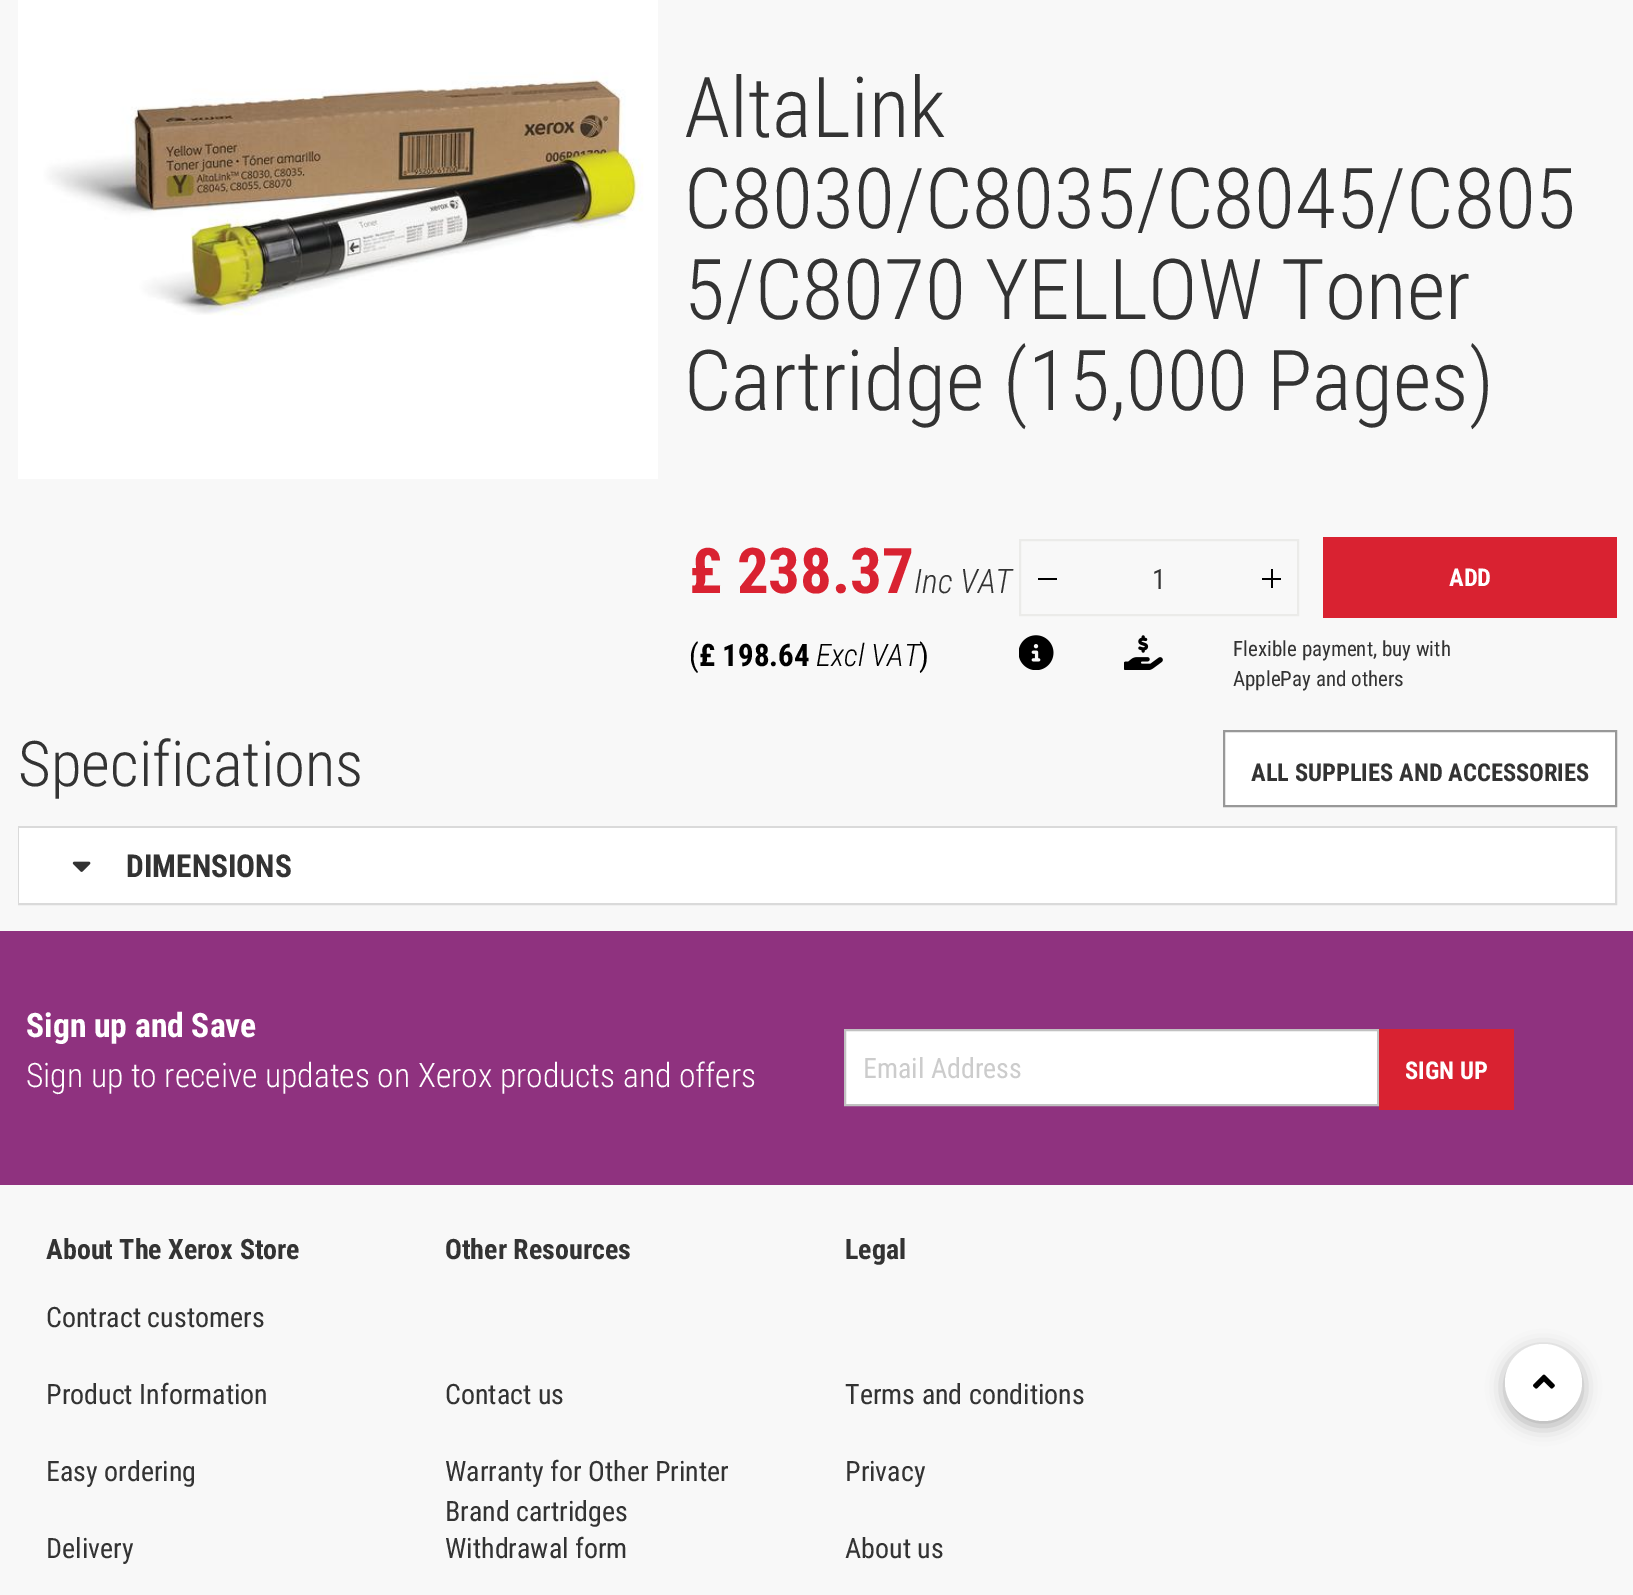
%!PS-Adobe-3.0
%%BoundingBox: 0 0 1633 1595
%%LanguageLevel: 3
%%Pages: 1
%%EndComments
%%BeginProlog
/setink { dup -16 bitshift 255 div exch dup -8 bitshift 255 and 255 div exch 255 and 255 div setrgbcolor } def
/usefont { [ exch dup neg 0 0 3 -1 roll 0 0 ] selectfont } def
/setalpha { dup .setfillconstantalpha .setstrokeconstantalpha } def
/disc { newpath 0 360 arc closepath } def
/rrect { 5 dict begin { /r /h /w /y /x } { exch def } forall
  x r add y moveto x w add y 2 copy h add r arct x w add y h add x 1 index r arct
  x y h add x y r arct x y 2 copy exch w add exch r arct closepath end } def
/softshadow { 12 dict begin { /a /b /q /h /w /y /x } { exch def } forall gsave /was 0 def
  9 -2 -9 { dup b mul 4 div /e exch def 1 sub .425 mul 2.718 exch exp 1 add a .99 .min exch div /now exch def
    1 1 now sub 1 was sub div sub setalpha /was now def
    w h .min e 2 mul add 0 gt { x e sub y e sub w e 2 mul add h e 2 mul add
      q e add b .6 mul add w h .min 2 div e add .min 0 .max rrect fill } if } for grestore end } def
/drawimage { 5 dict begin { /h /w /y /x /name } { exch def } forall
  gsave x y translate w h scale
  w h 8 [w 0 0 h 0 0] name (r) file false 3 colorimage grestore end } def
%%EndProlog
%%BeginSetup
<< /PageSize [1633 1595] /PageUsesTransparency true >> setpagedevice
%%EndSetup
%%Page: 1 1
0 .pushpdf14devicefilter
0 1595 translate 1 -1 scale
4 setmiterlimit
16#F8F8F8 setink
0 0 1633 1595 rectfill
(img1.raw) 18 0 640 479 drawimage
/RobotoCondensed-Light 84 usefont
16#333333 setink
[
    [(AltaLink) 684 137]
    [(C8030/C8035/C8045/C805) 684 228]
    [(5/C8070 YELLOW Toner) 684 319]
    [(Cartridge \(15,000 Pages\)) 684 410]
] { aload pop moveto show } forall
/RobotoCondensed-Bold 63 usefont
16#D92231 setink
689 593 moveto (£ 238.37) show
/RobotoCondensed-LightItalic 33.6 usefont
16#333333 setink
914 593 moveto (Inc VAT) show
/RobotoCondensed-Regular 31 usefont
16#000000 setink
689 666 moveto (\() show
/RobotoCondensed-Bold 31 usefont
699 666 moveto (£ 198.64) show
/RobotoCondensed-LightItalic 31 usefont
816 666 moveto (Excl VAT) show
/RobotoCondensed-Regular 31 usefont
919 666 moveto (\)) show
16#EBEBE9 setink
2 setlinewidth
1020 540 278 75 rectstroke
16#000000 setink
1038 578 19 2 rectfill
/RobotoCondensed-Regular 28 usefont
16#333333 setink
1152 589 moveto (1) show
[
    [1262 578 19 2 16#000000]
    [1271 569 2 19 16#000000]
    [1323 537 294 81 16#D92231]
] { aload pop setink rectfill } forall
/RobotoCondensed-Bold 24.5 usefont
16#FFFFFF setink
1449 586 moveto (ADD) show
(img2.raw) 1019 635 35 35 drawimage
(img3.raw) 1124 635 39 35 drawimage
/RobotoCondensed-Regular 21 usefont
16#333333 setink
1233 656 moveto (Flexible payment, buy with) show
1233 686 moveto (ApplePay and others) show
/RobotoCondensed-Light 63 usefont
18 786 moveto (Specifications) show
16#FFFFFF setink
1224 731 moveto 1616 731 lineto 1616 806 lineto 1224 806 lineto closepath gsave fill grestore
16#989898 setink
stroke
/RobotoCondensed-Bold 24.5 usefont
16#333333 setink
1251 781 moveto (ALL SUPPLIES AND ACCESSORIES) show
16#DADADA setink
19 827 1597 77 rectstroke
16#FFFFFF setink
19 828 1596 75 rectfill
(img4.raw) 72 861 19 11 drawimage
/RobotoCondensed-Bold 31.5 usefont
16#333333 setink
126 877 moveto (DIMENSIONS) show
16#8F327F setink
0 931 1633 254 rectfill
/RobotoCondensed-Bold 33.6 usefont
16#FFFFFF setink
26 1037 moveto (Sign up and Save) show
/RobotoCondensed-Light 33.6 usefont
26 1087 moveto (Sign up to receive updates on Xerox products and offers) show
845 1030 moveto 1378 1030 lineto 1378 1105 lineto 845 1105 lineto closepath gsave fill grestore
16#C1C1C1 setink
stroke
/RobotoCondensed-Regular 28 usefont
16#CCCCCC setink
863 1078 moveto (Email Address) show
16#D92231 setink
1379 1029 135 81 rectfill
/RobotoCondensed-Bold 24.5 usefont
16#FFFFFF setink
1405 1079 moveto (SIGN UP) show
/RobotoCondensed-Bold 28 usefont
16#333333 setink
46 1259 moveto (About The Xerox Store) show
/RobotoCondensed-Regular 28 usefont
[
    [(Contract customers) 46 1327]
    [(Product Information) 46 1404]
    [(Easy ordering) 46 1481]
    [(Delivery) 46 1558]
] { aload pop moveto show } forall
/RobotoCondensed-Bold 28 usefont
445 1259 moveto (Other Resources) show
/RobotoCondensed-Regular 28 usefont
[
    [(Contact us) 445 1404]
    [(Warranty for Other Printer) 445 1481]
    [(Brand cartridges) 445 1521]
    [(Withdrawal form) 445 1558]
] { aload pop moveto show } forall
/RobotoCondensed-Bold 28 usefont
845 1259 moveto (Legal) show
/RobotoCondensed-Regular 28 usefont
[
    [(Terms and conditions) 845 1404]
    [(Privacy) 845 1481]
    [(About us) 845 1558]
] { aload pop moveto show } forall
16#000000 setink
1505 1349 77 77 38.5 9 0.3 softshadow
16#FFFFFF setink
1543.5 1382.5 38.5 disc fill
(img5.raw) 1533 1374 22 15 drawimage
.poppdf14devicefilter showpage
%%EOF
